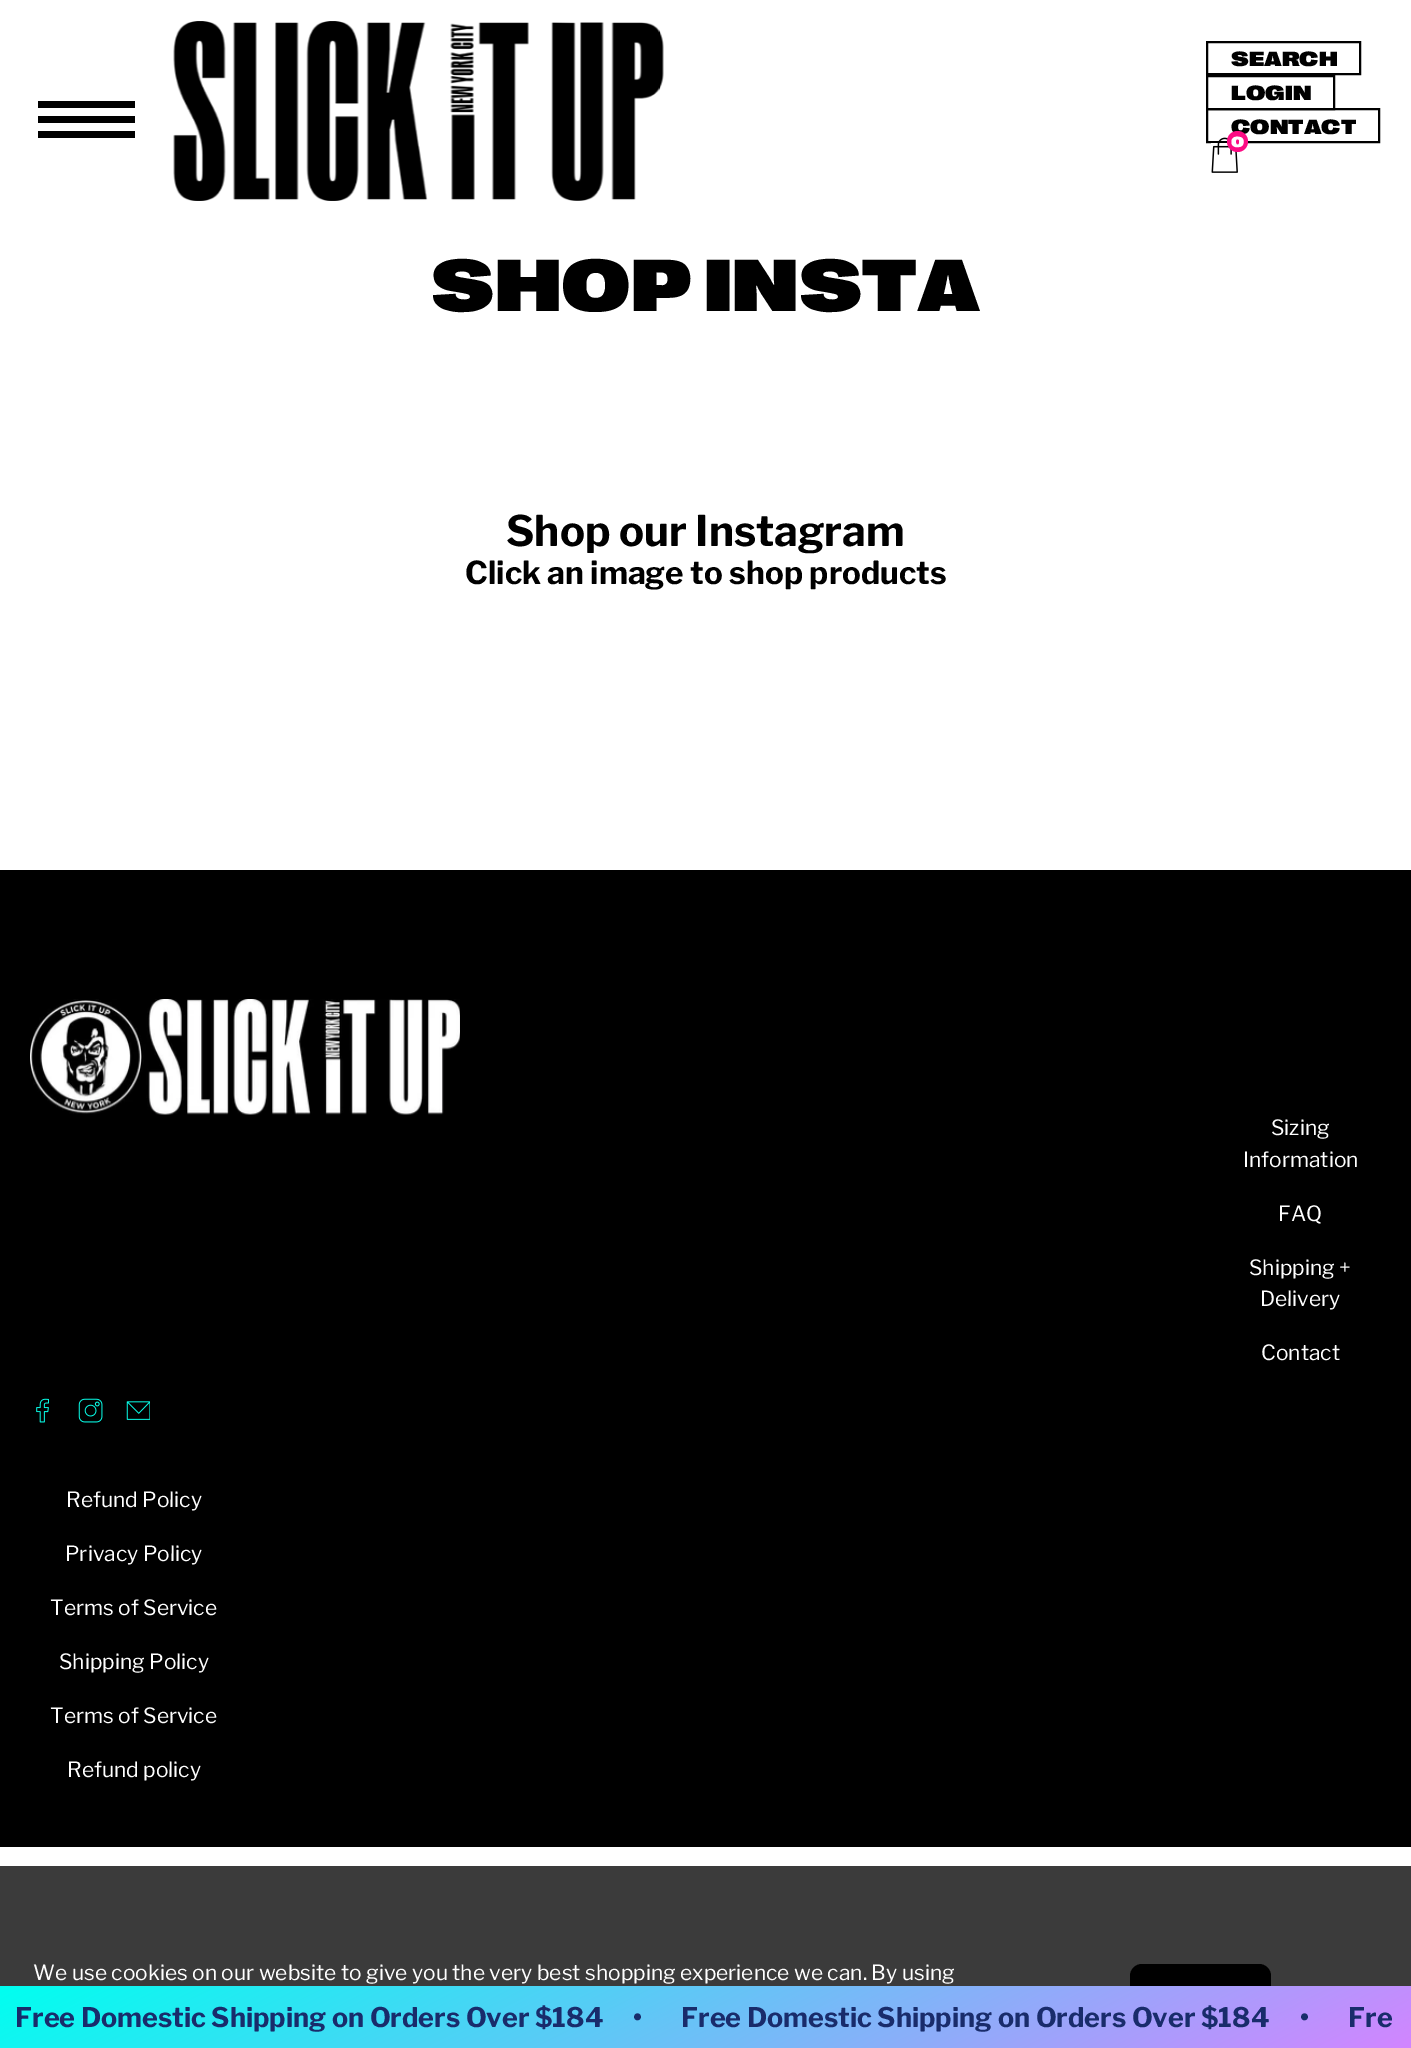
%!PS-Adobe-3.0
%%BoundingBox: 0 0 1411 2048
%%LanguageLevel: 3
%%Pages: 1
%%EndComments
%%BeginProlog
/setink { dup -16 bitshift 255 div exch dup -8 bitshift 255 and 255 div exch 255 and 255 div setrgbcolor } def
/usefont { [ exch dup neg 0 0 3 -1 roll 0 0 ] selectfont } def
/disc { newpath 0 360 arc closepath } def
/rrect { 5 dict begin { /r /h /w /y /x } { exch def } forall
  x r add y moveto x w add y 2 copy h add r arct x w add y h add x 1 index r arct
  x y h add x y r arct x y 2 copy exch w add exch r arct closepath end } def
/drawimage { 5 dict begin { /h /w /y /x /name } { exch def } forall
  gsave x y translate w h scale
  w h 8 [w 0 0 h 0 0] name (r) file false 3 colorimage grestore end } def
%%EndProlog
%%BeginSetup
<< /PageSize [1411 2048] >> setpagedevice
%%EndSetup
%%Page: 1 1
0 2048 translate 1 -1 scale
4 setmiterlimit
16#FFFFFF setink
0 0 1411 2048 rectfill
[
    [38 101 97 7 16#000000]
    [38 116 97 7 16#000000]
    [38 131 97 7 16#000000]
] { aload pop setink rectfill } forall
(img1.raw) 173 21 491 180 drawimage
2 setlinewidth
1207 42 153 32 rectstroke
/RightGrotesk-Black 21 usefont
1231 66 moveto (SEARCH) show
1207 76 127 33 rectstroke
1231 100 moveto (LOGIN) show
1207 109 172 33 rectstroke
1231 134 moveto (CONTACT) show
(img2.raw) 1211 137 27 36 drawimage
16#FC0C84 setink
1237.5 141.5 10.5 disc fill
/RightGrotesk-Black 15 usefont
16#FFFFFF setink
1231 147 moveto (0) show
/RightGrotesk-Black 75 usefont
16#000000 setink
431 311 moveto (SHOP INSTA) show
/LibreFranklin-Bold 42 usefont
506 546 moveto (Shop our Instagram) show
/LibreFranklin-Bold 31.5 usefont
465 584 moveto (Click an image to shop products) show
0 870 1411 977 rectfill
(img3.raw) 30 999 430 116 drawimage
/LibreFranklin-Regular 21 usefont
16#FFFFFF setink
[
    [(Sizing) 1271 1135]
    [(Information) 1243 1167]
    [(FAQ) 1278 1221]
    [(Shipping +) 1249 1275]
    [(Delivery) 1260 1306]
    [(Contact) 1261 1360]
] { aload pop moveto show } forall
(img4.raw) 36 1398 13 25 drawimage
(img5.raw) 78 1398 25 25 drawimage
(img6.raw) 126 1401 24 19 drawimage
[
    [(Refund Policy) 66 1507]
    [(Privacy Policy) 65 1561]
    [(Terms of Service) 50 1615]
    [(Shipping Policy) 59 1669]
    [(Terms of Service) 50 1723]
    [(Refund policy) 67 1777]
] { aload pop moveto show } forall
16#3B3B3B setink
0 1866 1411 120 rectfill
16#FFFFFF setink
33 1980 moveto (We use cookies on our website to give you the very best shopping experience we can. By using) show
16#000000 setink
1130 1964 141 48 12 rrect fill
gsave 0 1986 moveto 1411 1986 lineto 1411 2048 lineto 0 2048 lineto closepath clip newpath
<< /ShadingType 2 /ColorSpace /DeviceRGB /Coords [548 1707 864 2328] /Extend [true true] /Function << /FunctionType 2 /Domain [0 1] /C0 [0 1 0.941] /C1 [0.824 0.522 1] /N 1 >> >> shfill grestore
/LibreFranklin-Bold 27 usefont
16#192C6B setink
[
    [(Free Domestic Shipping on Orders Over $184) 15 2027]
    [(•) 633 2027]
    [(Free Domestic Shipping on Orders Over $184) 681 2027]
    [(•) 1300 2027]
    [(Fre) 1348 2027]
] { aload pop moveto show } forall
showpage
%%EOF
